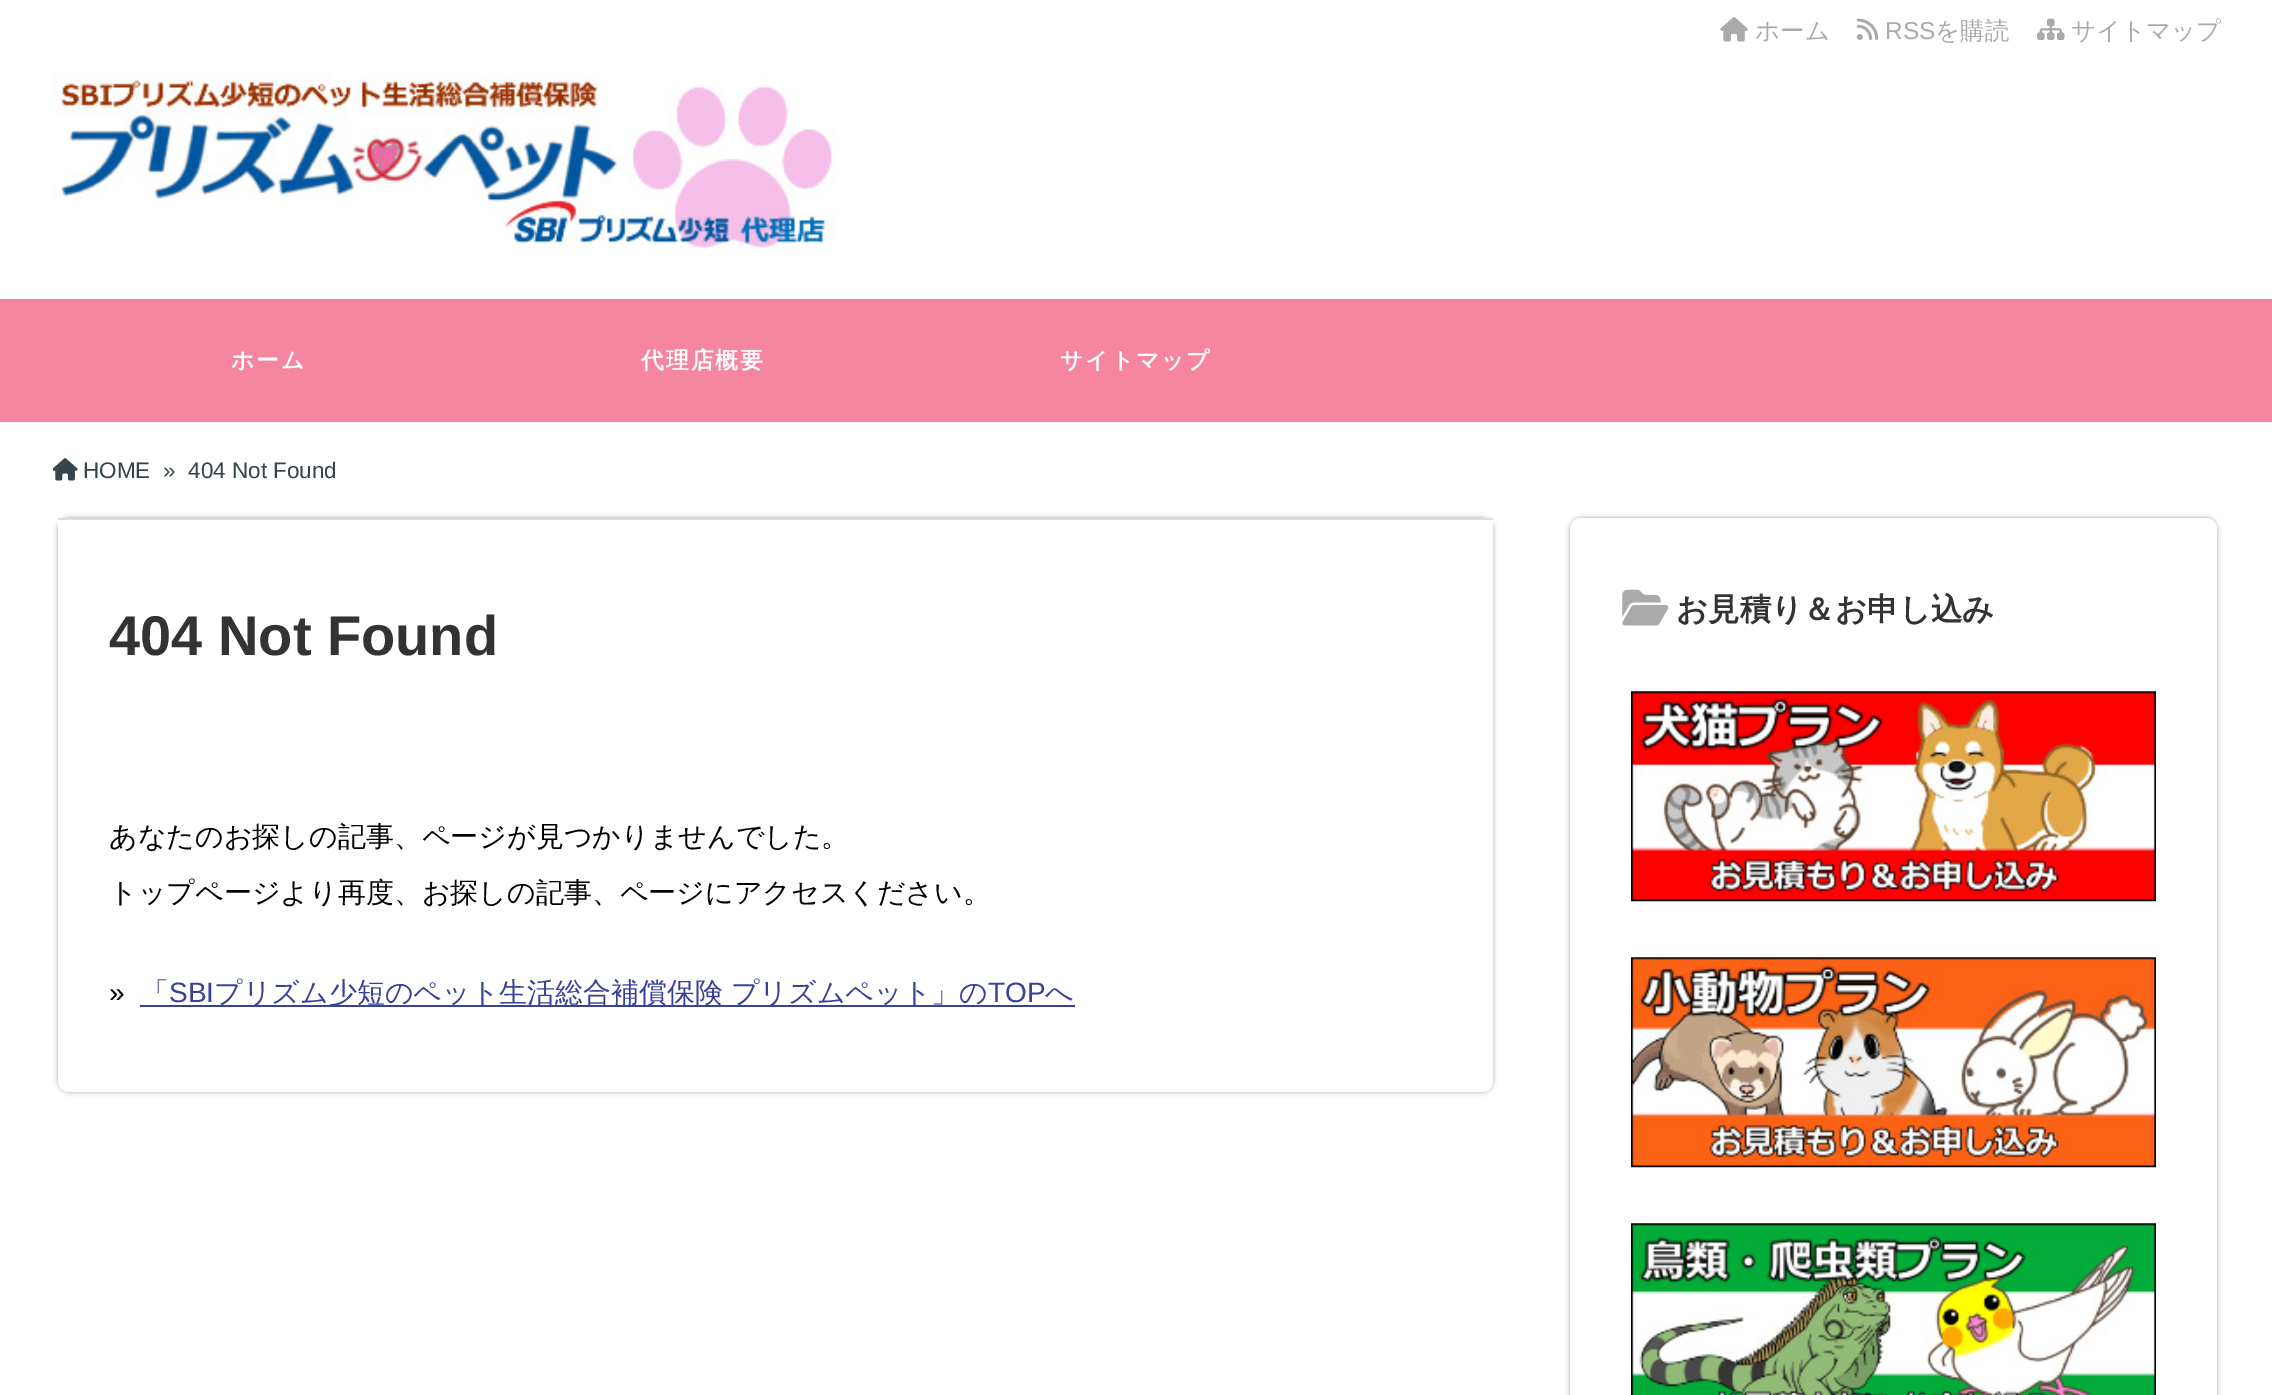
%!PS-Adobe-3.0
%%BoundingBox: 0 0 2272 1395
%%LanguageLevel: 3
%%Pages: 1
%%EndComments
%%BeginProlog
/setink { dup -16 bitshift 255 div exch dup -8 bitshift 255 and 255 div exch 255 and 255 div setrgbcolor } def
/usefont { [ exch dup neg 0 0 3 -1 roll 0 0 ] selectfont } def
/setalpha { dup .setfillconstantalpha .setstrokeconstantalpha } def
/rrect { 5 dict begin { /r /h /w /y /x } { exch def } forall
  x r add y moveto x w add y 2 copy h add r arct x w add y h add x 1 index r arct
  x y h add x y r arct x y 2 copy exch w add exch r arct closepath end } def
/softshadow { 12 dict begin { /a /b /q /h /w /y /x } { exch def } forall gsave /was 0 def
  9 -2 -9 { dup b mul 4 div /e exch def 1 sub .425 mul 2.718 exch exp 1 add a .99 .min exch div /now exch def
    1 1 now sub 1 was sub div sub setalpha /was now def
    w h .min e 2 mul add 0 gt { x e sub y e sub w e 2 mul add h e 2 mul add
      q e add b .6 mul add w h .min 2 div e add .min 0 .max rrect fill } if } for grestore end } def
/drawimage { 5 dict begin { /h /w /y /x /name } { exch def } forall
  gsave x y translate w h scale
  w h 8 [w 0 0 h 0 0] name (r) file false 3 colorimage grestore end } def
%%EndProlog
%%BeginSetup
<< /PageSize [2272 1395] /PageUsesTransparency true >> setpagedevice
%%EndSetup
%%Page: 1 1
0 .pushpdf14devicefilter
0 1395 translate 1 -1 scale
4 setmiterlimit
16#FFFFFF setink
0 0 2272 1395 rectfill
(img1.raw) 1720 17 28 25 drawimage
/WenQuanYiZenHei-Medium 24.5 usefont
16#AAAAAA setink
1755 39 moveto (ホーム) show
(img2.raw) 1856 18 23 22 drawimage
/LiberationSans-Regular 24.5 usefont
1885 39 moveto (RSS) show
/WenQuanYiZenHei-Medium 24.5 usefont
1935 39 moveto (を購読) show
(img3.raw) 2037 18 28 22 drawimage
2071 39 moveto (サイトマップ) show
(img4.raw) 53 73 783 176 drawimage
16#F685A0 setink
0 299 2272 123 rectfill
/WenQuanYiZenHei-Bold 22.75 usefont
16#FFFFFF setink
231 368 moveto 2 0 (ホーム) ashow
641 368 moveto 2 0 (代理店概要) ashow
1060 368 moveto 2 0 (サイトマップ) ashow
(img5.raw) 53 458 25 23 drawimage
/LiberationSans-Regular 22.5 usefont
16#364549 setink
[
    [(HOME) 83 478]
    [(») 163 478]
    [(404 Not Found) 188 478]
] { aload pop moveto show } forall
16#AAAAAA setink
1570 518 647 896 11 2.5 1 softshadow
16#FFFFFF setink
1570 518 647 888 11 rrect fill
(img6.raw) 1622 589 47 37 drawimage
/WenQuanYiZenHei-Bold 31.5 usefont
16#333333 setink
1676 620 moveto (お見積り＆お申し込み) show
(img7.raw) 1631 691 525 211 drawimage
(img8.raw) 1631 957 525 211 drawimage
(img9.raw) 1631 1223 525 172 drawimage
16#AAAAAA setink
58 518 1435 574 11 2.5 1 softshadow
16#FFFFFF setink
58 518 1435 574 11 rrect fill
58 520 1435 8 rectfill
16#DDDDDD setink
58 518 1435 2 rectfill
/LiberationSans-Bold 56 usefont
16#333333 setink
109 655 moveto (404 Not Found) show
/WenQuanYiZenHei-Medium 28 usefont
16#000000 setink
109 846 moveto (あなたのお探しの記事、ページが見つかりませんでした。) show
109 902 moveto (トップページより再度、お探しの記事、ページにアクセスください。) show
/LiberationSans-Regular 28 usefont
109 1002 moveto (») show
/WenQuanYiZenHei-Medium 28 usefont
16#3A4199 setink
141 1002 moveto (「) show
/LiberationSans-Regular 28 usefont
169 1002 moveto (SBI) show
140 1005 935 2 rectfill
/WenQuanYiZenHei-Medium 28 usefont
214 1002 moveto -1 0 32 (プリズム少短のペット生活総合補償保険 プリズムペット」の) widthshow
/LiberationSans-Regular 28 usefont
988 1002 moveto (TOP) show
/WenQuanYiZenHei-Medium 28 usefont
1045 1002 moveto (へ) show
.poppdf14devicefilter showpage
%%EOF
